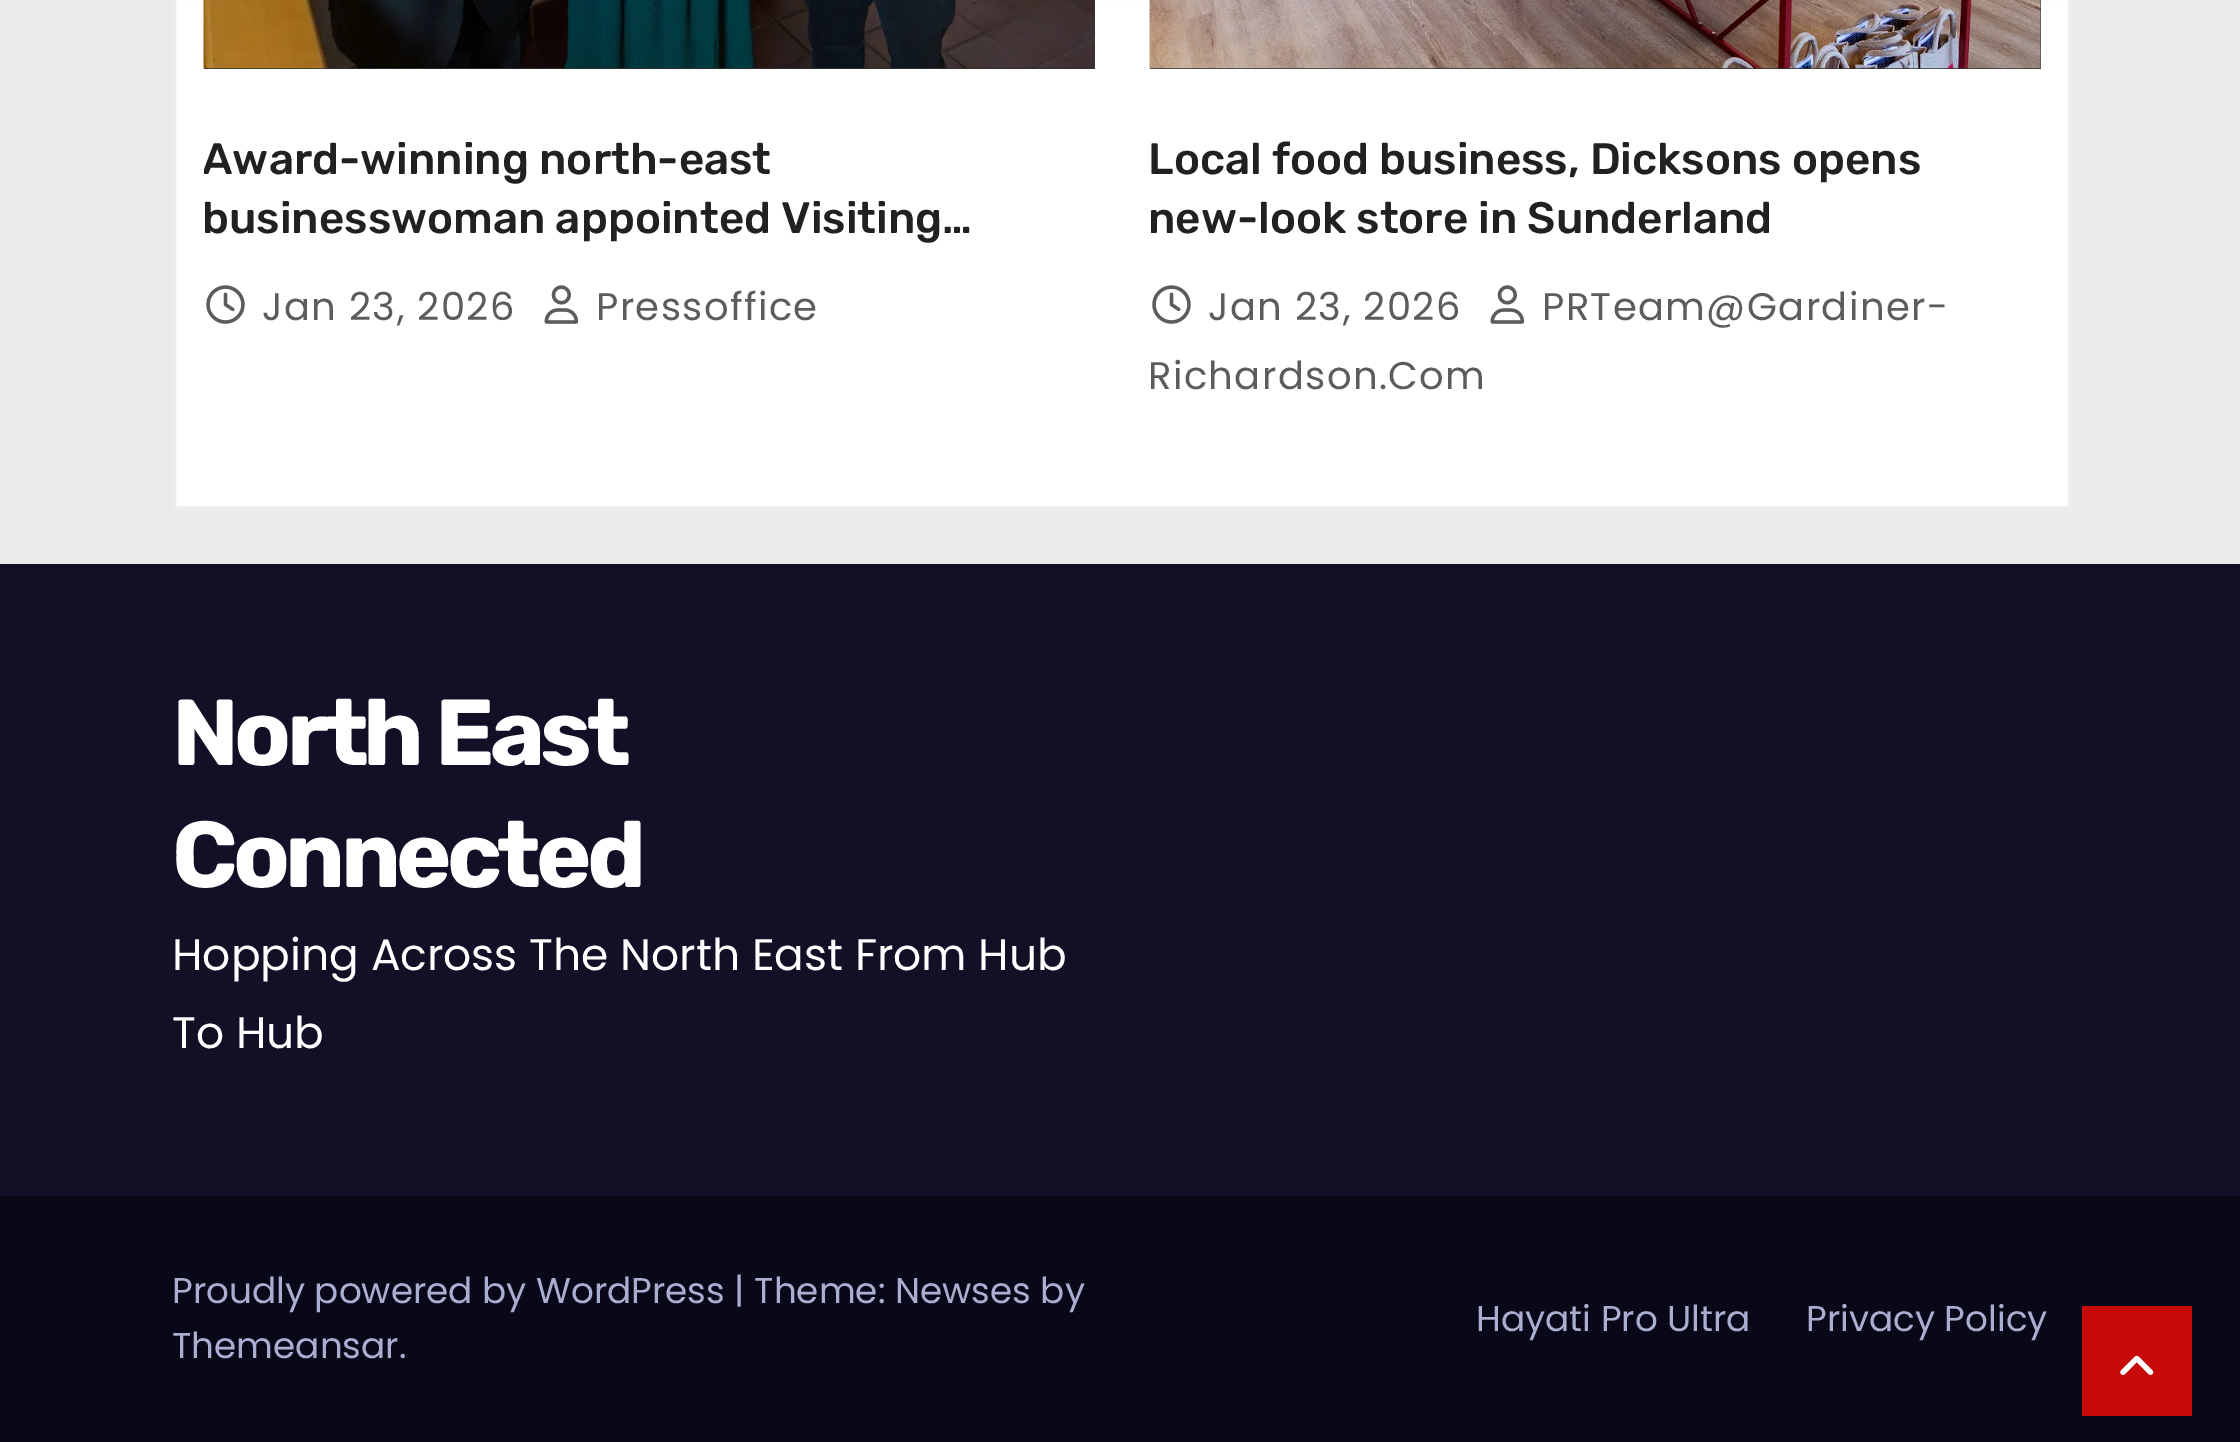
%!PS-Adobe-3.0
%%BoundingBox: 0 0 2240 1442
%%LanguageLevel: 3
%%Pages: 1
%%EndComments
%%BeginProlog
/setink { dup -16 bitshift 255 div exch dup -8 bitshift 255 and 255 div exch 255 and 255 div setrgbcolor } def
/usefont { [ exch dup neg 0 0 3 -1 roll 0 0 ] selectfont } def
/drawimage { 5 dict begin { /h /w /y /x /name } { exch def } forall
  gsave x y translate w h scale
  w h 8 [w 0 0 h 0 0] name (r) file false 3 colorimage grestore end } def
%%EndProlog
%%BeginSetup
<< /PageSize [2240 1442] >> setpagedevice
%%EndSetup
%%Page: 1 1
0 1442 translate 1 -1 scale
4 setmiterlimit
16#EAEAEA setink
0 0 2240 1442 rectfill
16#FFFFFF setink
174.5 -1.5 moveto 2069.5 -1.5 lineto 2069.5 507.5 lineto 174.5 507.5 lineto closepath gsave fill grestore
16#EEEEEE setink
3 setlinewidth
stroke
16#333333 setink
204 0 891 69 rectfill
(img1.raw) 203 0 892 69 drawimage
gsave
204 129 891 116 rectclip
/Rubik-Medium 44 usefont
16#212121 setink
202 174 moveto (Award-winning north-east) show
grestore
/Rubik-Medium 44 usefont
16#212121 setink
202 233 moveto (businesswoman appointed Visiting…) show
(img2.raw) 206 285 39 39 drawimage
/Poppins-Regular 38.5 usefont
16#5C5C5C setink
262 320 moveto 1.4 0 (Jan 23, 2026) ashow
(img3.raw) 544 285 35 39 drawimage
596 320 moveto 1.4 0 (Pressoffice) ashow
16#333333 setink
1150 0 891 69 rectfill
(img4.raw) 1149 0 892 69 drawimage
/Rubik-Medium 44 usefont
16#212121 setink
1148 174 moveto (Local food business, Dicksons opens) show
1148 233 moveto (new-look store in Sunderland) show
(img3.raw) 1490 285 35 39 drawimage
/Poppins-Regular 38.5 usefont
16#5C5C5C setink
1542 320 moveto 1.4 0 (PRTeam@Gardiner-) ashow
1148 389 moveto 1.4 0 (Richardson.Com) ashow
(img2.raw) 1152 285 39 39 drawimage
1208 320 moveto 1.4 0 (Jan 23, 2026) ashow
16#121026 setink
0 564 2240 632 rectfill
/Rubik-Bold 93.5 usefont
16#FFFFFF setink
172 765 moveto -4.75 0 (North East) ashow
172 887 moveto -4.75 0 (Connected) ashow
/Poppins-Regular 44 usefont
172 970 moveto (Hopping Across The North East From Hub) show
172 1048 moveto (To Hub) show
16#090818 setink
0 1196 2240 246 rectfill
/Poppins-Regular 35.75 usefont
16#AAAED1 setink
[
    [(Proudly powered by WordPress | Theme: Newses by) 172 1303]
    [(Themeansar.) 172 1358]
    [(Hayati Pro Ultra) 1476 1331]
    [(Privacy Policy) 1806 1331]
] { aload pop moveto show } forall
16#C70909 setink
2082 1306 110 110 rectfill
(img5.raw) 2120 1355 34 20 drawimage
showpage
%%EOF
